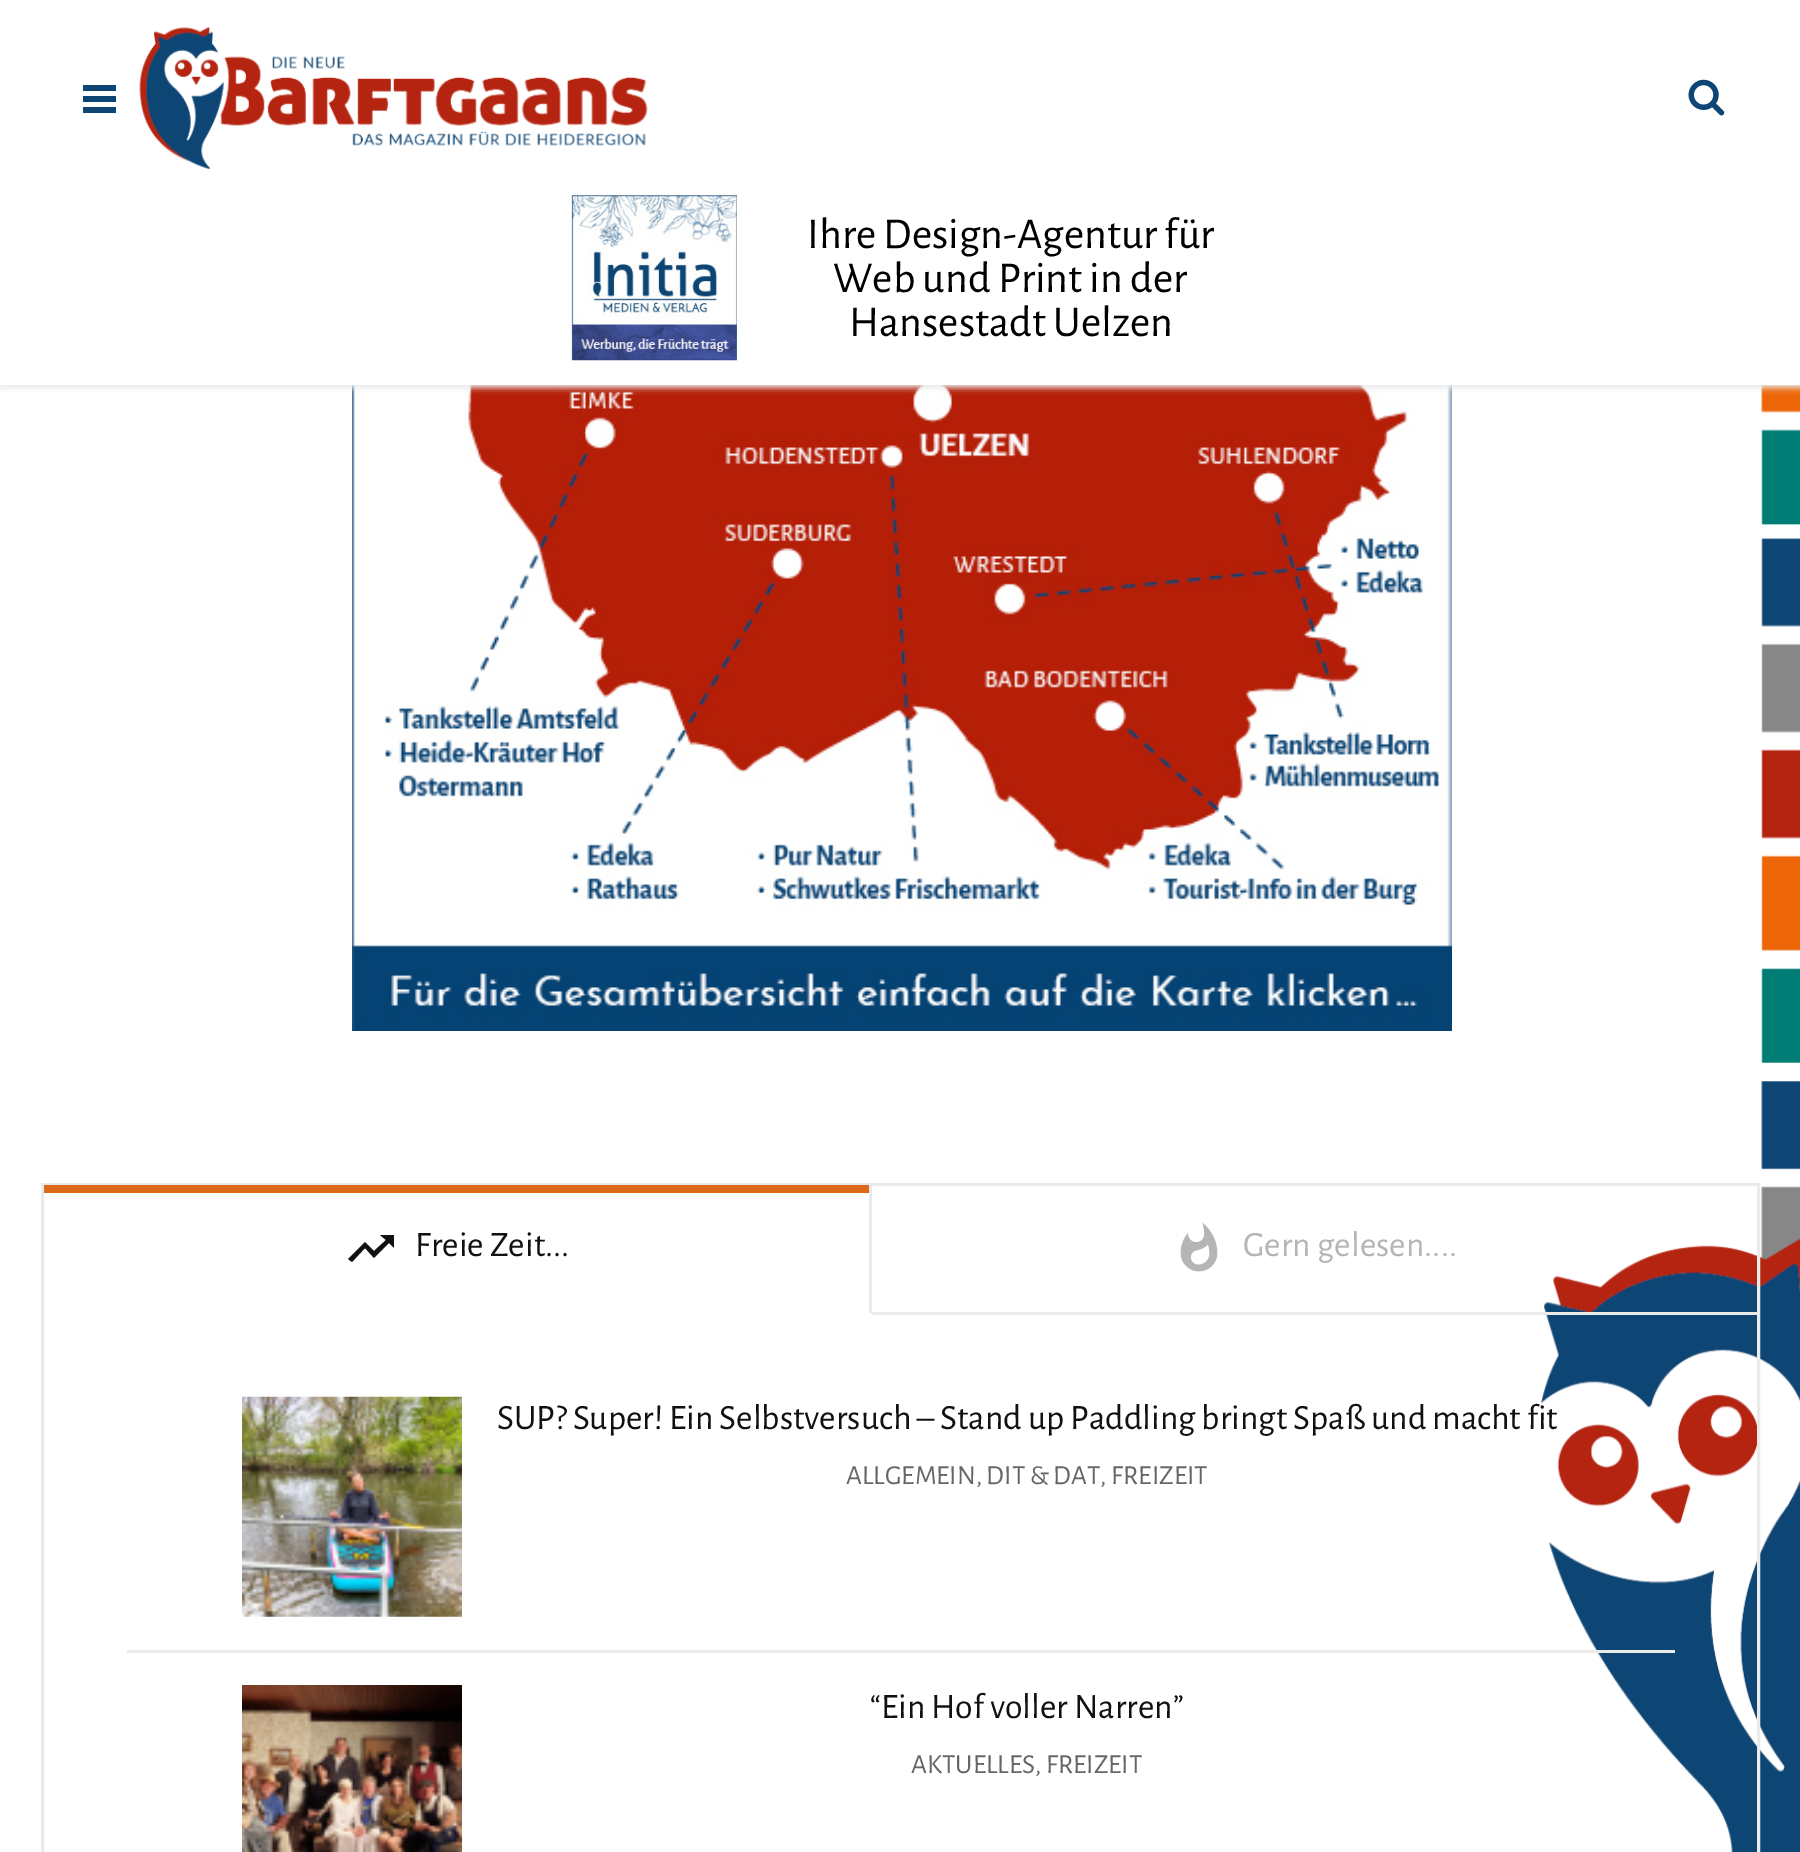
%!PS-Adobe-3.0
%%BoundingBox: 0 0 1800 1852
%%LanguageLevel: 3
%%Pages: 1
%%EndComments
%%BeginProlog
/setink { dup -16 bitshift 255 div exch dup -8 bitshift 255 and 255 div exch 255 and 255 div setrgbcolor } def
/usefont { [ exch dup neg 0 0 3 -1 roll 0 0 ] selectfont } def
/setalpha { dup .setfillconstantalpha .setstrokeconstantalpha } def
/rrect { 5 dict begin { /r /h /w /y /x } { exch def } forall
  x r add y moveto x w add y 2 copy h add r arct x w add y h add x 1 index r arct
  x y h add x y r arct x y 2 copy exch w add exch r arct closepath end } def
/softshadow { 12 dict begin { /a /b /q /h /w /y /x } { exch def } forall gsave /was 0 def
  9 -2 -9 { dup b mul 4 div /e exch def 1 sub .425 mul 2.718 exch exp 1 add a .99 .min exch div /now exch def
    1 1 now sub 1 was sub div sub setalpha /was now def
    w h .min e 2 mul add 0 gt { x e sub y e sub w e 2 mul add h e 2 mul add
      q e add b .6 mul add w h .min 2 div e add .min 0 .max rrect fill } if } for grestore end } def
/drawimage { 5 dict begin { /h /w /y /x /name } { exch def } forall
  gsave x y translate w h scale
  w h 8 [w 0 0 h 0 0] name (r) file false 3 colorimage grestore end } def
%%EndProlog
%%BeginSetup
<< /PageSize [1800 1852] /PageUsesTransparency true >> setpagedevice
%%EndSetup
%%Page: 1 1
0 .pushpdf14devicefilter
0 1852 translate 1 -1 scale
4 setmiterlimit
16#FFFFFF setink
0 0 1800 1852 rectfill
(img1.raw) 1541 385 259 1467 drawimage
(img5.raw) 352 385 1100 646 drawimage
16#EAEAEA setink
0 3 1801 385 0 3 1 softshadow
[
    [0 0 1800 385 16#FFFFFF]
    [83 85 33 6 16#0D4574]
    [83 96 33 6 16#0D4574]
    [83 107 33 6 16#0D4574]
] { aload pop setink rectfill } forall
(img2.raw) 139 26 509 144 drawimage
(img3.raw) 1688 79 37 37 drawimage
(img4.raw) 571 195 166 166 drawimage
/AlegreyaSans-Regular 44 usefont
16#000000 setink
[
    [(Ihre Design-Agentur für) 807 248]
    [(Web und Print in der) 833 292]
    [(Hansestadt Uelzen) 849 336]
] { aload pop moveto show } forall
16#EAEAEA setink
3 setlinewidth
42.5 1184.5 1716 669 rectstroke
872 1185 moveto 872 1314 lineto 869 1312 lineto 869 1185 lineto closepath fill
16#DC6A1A setink
44 1185 825 8 rectfill
16#111111 setink
380 1235 moveto 394 1235 lineto 394 1248 lineto 389 1243 lineto 374 1258 lineto 365 1248 lineto 352 1262 lineto 348 1259 lineto 365 1242 lineto 374 1251 lineto 386 1240 lineto closepath fill
/AlegreyaSans-Regular 35.75 usefont
415 1256 moveto (Freie Zeit...) show
16#EAEAEA setink
872 1312 885 3 rectfill
(img6.raw) 1180 1222 38 50 drawimage
16#B5B5B5 setink
1243 1256 moveto (Gern gelesen....) show
16#EAEAEA setink
127 1650 1548 3 rectfill
(img7.raw) 242 1396 220 221 drawimage
16#111111 setink
497 1429 moveto (SUP? Super! Ein Selbstversuch – Stand up Paddling bringt Spaß und macht fit) show
/AlegreyaSans-Regular 27.5 usefont
16#666666 setink
846 1484 moveto (ALLGEMEIN, DIT & DAT, FREIZEIT) show
(img8.raw) 242 1685 220 167 drawimage
/AlegreyaSans-Regular 35.75 usefont
16#111111 setink
870 1718 moveto (“Ein Hof voller Narren”) show
/AlegreyaSans-Regular 27.5 usefont
16#666666 setink
911 1773 moveto (AKTUELLES, FREIZEIT) show
.poppdf14devicefilter showpage
%%EOF
